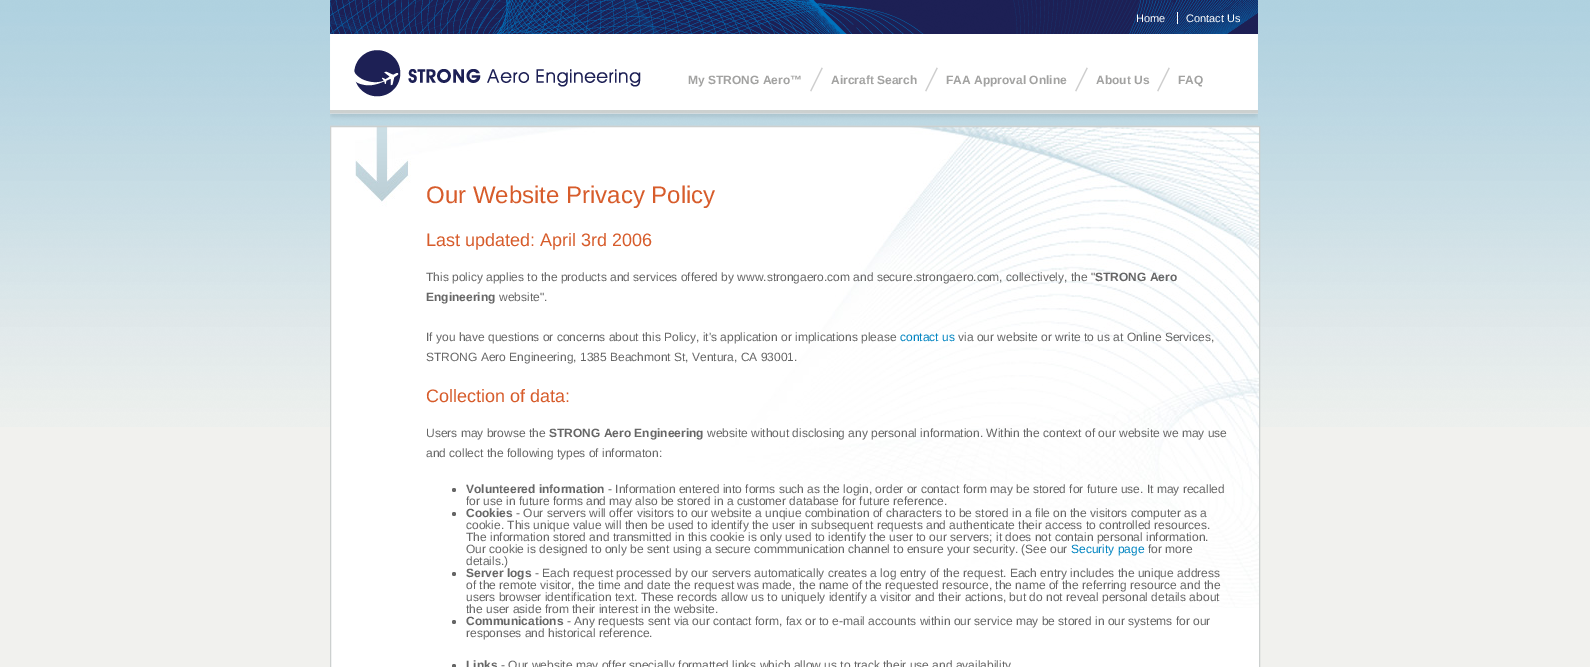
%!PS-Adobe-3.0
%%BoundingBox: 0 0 1590 667
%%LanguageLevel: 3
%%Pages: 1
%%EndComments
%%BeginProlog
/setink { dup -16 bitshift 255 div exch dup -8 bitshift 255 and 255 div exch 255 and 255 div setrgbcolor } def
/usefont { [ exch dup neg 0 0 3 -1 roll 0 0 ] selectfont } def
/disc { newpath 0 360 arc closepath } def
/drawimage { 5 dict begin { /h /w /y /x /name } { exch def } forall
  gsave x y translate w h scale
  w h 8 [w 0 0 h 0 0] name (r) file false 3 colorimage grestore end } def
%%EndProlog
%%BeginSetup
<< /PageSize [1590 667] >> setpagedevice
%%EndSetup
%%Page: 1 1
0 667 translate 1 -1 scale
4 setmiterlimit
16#F1F1EE setink
0 0 1590 667 rectfill
(img1.raw) 0 0 1590 427 drawimage
(img2.raw) 330 0 928 126 drawimage
/LiberationSans-Regular 11 usefont
16#FFFFFF setink
1136 22 moveto (Home) show
1186 22 moveto (Contact Us) show
1177 12 1 12 rectfill
(img3.raw) 354 50 287 47 drawimage
/LiberationSans-Bold 12 usefont
16#A2A2A1 setink
688 84 moveto (My STRONG Aero™) show
(img4.raw) 810 67 13 25 drawimage
831 84 moveto (Aircraft Search) show
(img4.raw) 925 67 13 25 drawimage
946 84 moveto (FAA Approval Online) show
(img4.raw) 1075 67 13 25 drawimage
1096 84 moveto (About Us) show
(img4.raw) 1157 67 13 25 drawimage
1178 84 moveto (FAQ) show
16#FFFFFF setink
331 127 928 540 rectfill
(img5.raw) 355 127 904 481 drawimage
16#CCD0CF setink
330.5 126.5 929 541 rectstroke
/LiberationSans-Regular 24 usefont
16#D75C2B setink
426 203 moveto (Our Website Privacy Policy) show
/LiberationSans-Regular 18 usefont
426 246 moveto (Last updated: April 3rd 2006) show
/LiberationSans-Regular 12 usefont
16#666666 setink
426 281 moveto (This policy applies to the products and services offered by www.strongaero.com and secure.strongaero.com, collectively, the ") show
/LiberationSans-Bold 12 usefont
1095 281 moveto (STRONG Aero) show
426 301 moveto (Engineering) show
/LiberationSans-Regular 12 usefont
499 301 moveto (website".) show
426 341 moveto (If you have questions or concerns about this Policy, it's application or implications please) show
16#0084C1 setink
900 341 moveto (contact us) show
16#666666 setink
958 341 moveto (via our website or write to us at Online Services,) show
426 361 moveto (STRONG Aero Engineering, 1385 Beachmont St, Ventura, CA 93001.) show
/LiberationSans-Regular 18 usefont
16#D75C2B setink
426 402 moveto (Collection of data:) show
/LiberationSans-Regular 12 usefont
16#666666 setink
426 437 moveto (Users may browse the) show
/LiberationSans-Bold 12 usefont
549 437 moveto (STRONG Aero Engineering) show
/LiberationSans-Regular 12 usefont
707 437 moveto (website without disclosing any personal information. Within the context of our website we may use) show
426 457 moveto (and collect the following types of informaton:) show
454 490 2 disc fill
/LiberationSans-Bold 12 usefont
466 493 moveto (Volunteered information) show
/LiberationSans-Regular 12 usefont
608 493 moveto (- Information entered into forms such as the login, order or contact form may be stored for future use. It may recalled) show
466 505 moveto (for use in future forms and may also be stored in a customer database for future reference.) show
454 514 2 disc fill
/LiberationSans-Bold 12 usefont
466 517 moveto (Cookies) show
/LiberationSans-Regular 12 usefont
[
    [(- Our servers will offer visitors to our website a unqiue combination of characters to be stored in a file on the visitors computer as a) 516 517]
    [(cookie. This unique value will then be used to identify the user in subsequent requests and authenticate their access to controlled resources.) 466 529]
    [(The information stored and transmitted in this cookie is only used to identify the user to our servers; it does not contain personal information.) 466 541]
    [(Our cookie is designed to only be sent using a secure commmunication channel to ensure your security. \(See our) 466 553]
] { aload pop moveto show } forall
16#0084C1 setink
1071 553 moveto (Security page) show
16#666666 setink
1148 553 moveto (for more) show
466 565 moveto (details.\)) show
454 574 2 disc fill
/LiberationSans-Bold 12 usefont
466 577 moveto (Server logs) show
/LiberationSans-Regular 12 usefont
[
    [(- Each request processed by our servers automatically creates a log entry of the request. Each entry includes the unique address) 535 577]
    [(of the remote visitor, the time and date the request was made, the name of the requested resource, the name of the referring resource and the) 466 589]
    [(users browser identification text. These records allow us to uniquely identify a visitor and their actions, but do not reveal personal details about) 466 601]
    [(the user aside from their interest in the website.) 466 613]
] { aload pop moveto show } forall
454 622 2 disc fill
/LiberationSans-Bold 12 usefont
466 625 moveto (Communications) show
/LiberationSans-Regular 12 usefont
567 625 moveto (- Any requests sent via our contact form, fax or to e-mail accounts within our service may be stored in our systems for our) show
466 637 moveto (responses and historical reference.) show
454 666 2 disc fill
/LiberationSans-Bold 12 usefont
466 669 moveto (Links) show
/LiberationSans-Regular 12 usefont
501 669 moveto (- Our website may offer specially formatted links which allow us to track their use and availability) show
showpage
%%EOF
